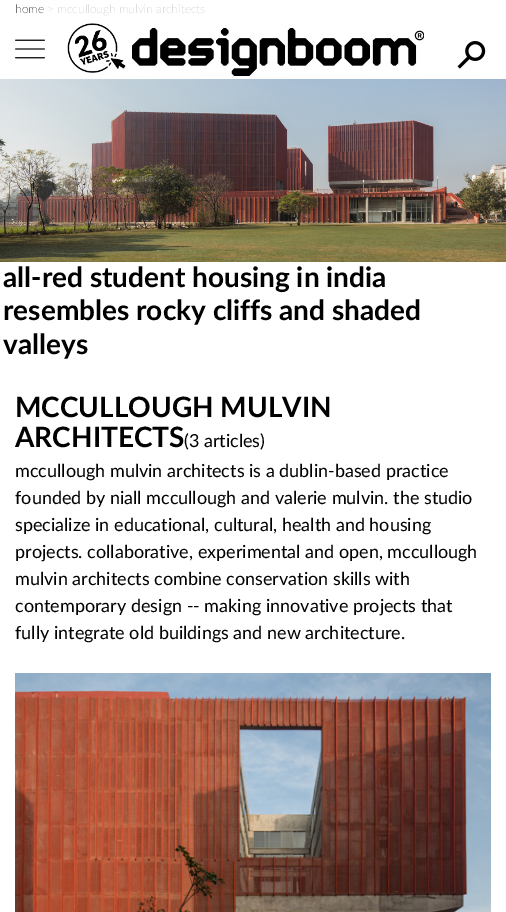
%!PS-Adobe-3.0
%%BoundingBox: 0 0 506 912
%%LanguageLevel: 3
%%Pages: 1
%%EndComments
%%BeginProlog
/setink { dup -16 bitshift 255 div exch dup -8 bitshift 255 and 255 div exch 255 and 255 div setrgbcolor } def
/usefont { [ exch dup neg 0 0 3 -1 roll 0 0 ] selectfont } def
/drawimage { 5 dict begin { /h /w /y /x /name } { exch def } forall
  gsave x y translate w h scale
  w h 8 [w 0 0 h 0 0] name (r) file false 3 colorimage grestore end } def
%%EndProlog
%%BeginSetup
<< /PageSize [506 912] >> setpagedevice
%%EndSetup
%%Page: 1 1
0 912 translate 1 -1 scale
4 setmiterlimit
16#FFFFFF setink
0 0 506 912 rectfill
/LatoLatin-Thin 12 usefont
16#000000 setink
15 13 moveto (home) show
16#C3C3C3 setink
47 13 moveto (> mccullough mulvin architects) show
(img1.raw) 15 39 30 20 drawimage
(img2.raw) 67 23 59 50 drawimage
(img3.raw) 132 28 292 48 drawimage
(img4.raw) 457 41 29 28 drawimage
(img5.raw) 0 79 506 183 drawimage
/LatoLatin-Bold 28 usefont
16#000000 setink
[
    [(all-red student housing in india) 3 287]
    [(resembles rocky cliffs and shaded) 3 320]
    [(valleys) 3 354]
    [(MCCULLOUGH MULVIN) 15 417]
    [(ARCHITECTS) 15 447]
] { aload pop moveto show } forall
/LatoLatin-Regular 18 usefont
[
    [(\(3 articles\)) 184 447]
    [(mccullough mulvin architects is a dublin-based practice) 15 477]
    [(founded by niall mccullough and valerie mulvin. the studio) 15 504]
    [(specialize in educational, cultural, health and housing) 15 531]
    [(projects. collaborative, experimental and open, mccullough) 15 558]
    [(mulvin architects combine conservation skills with) 15 585]
    [(contemporary design -- making innovative projects that) 15 612]
    [(fully integrate old buildings and new architecture.) 15 639]
] { aload pop moveto show } forall
(img6.raw) 15 673 476 239 drawimage
showpage
%%EOF
